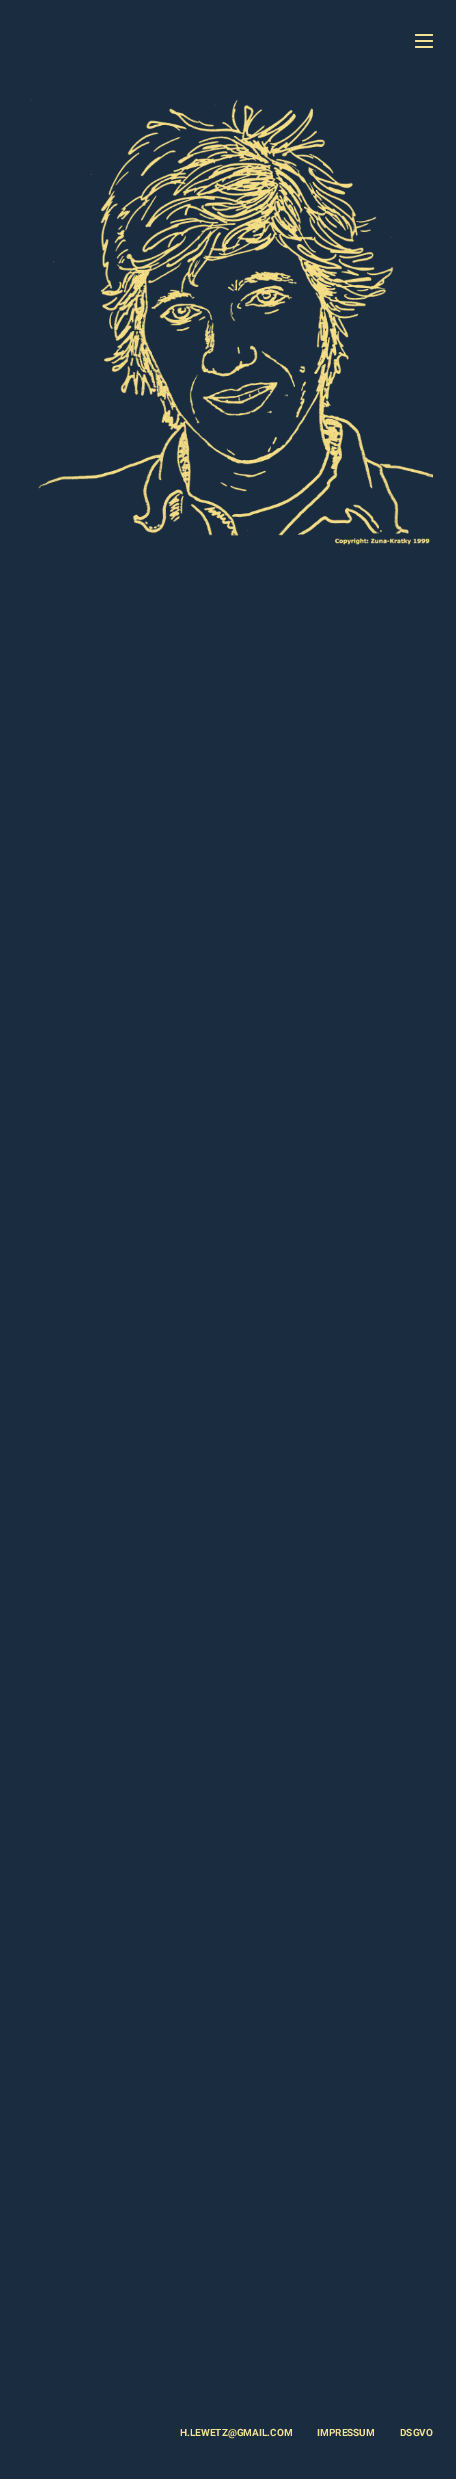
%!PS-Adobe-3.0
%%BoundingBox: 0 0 456 2479
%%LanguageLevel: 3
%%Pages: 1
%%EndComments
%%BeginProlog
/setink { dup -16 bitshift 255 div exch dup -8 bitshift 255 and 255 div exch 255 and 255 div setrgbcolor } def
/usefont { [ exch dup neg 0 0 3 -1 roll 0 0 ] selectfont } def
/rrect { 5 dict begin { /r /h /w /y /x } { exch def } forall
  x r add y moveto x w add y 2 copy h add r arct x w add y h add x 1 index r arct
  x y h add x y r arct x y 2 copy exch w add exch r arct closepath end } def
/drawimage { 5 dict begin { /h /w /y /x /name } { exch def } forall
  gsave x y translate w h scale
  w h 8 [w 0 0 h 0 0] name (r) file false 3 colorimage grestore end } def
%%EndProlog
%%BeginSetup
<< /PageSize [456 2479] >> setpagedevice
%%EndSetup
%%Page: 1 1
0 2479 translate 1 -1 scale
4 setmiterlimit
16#1A2C40 setink
0 0 456 2479 rectfill
16#F4E294 setink
415 34 18 2 1 rrect fill
415 40 18 2 1 rrect fill
415 46 18 2 1 rrect fill
(img1.raw) 31 99 402 446 drawimage
/Roboto-Bold 10 usefont
[
    [(H.LEWETZ@GMAIL.COM) 180 2436]
    [(IMPRESSUM) 317 2436]
    [(DSGVO) 400 2436]
] { aload pop moveto show } forall
showpage
%%EOF
